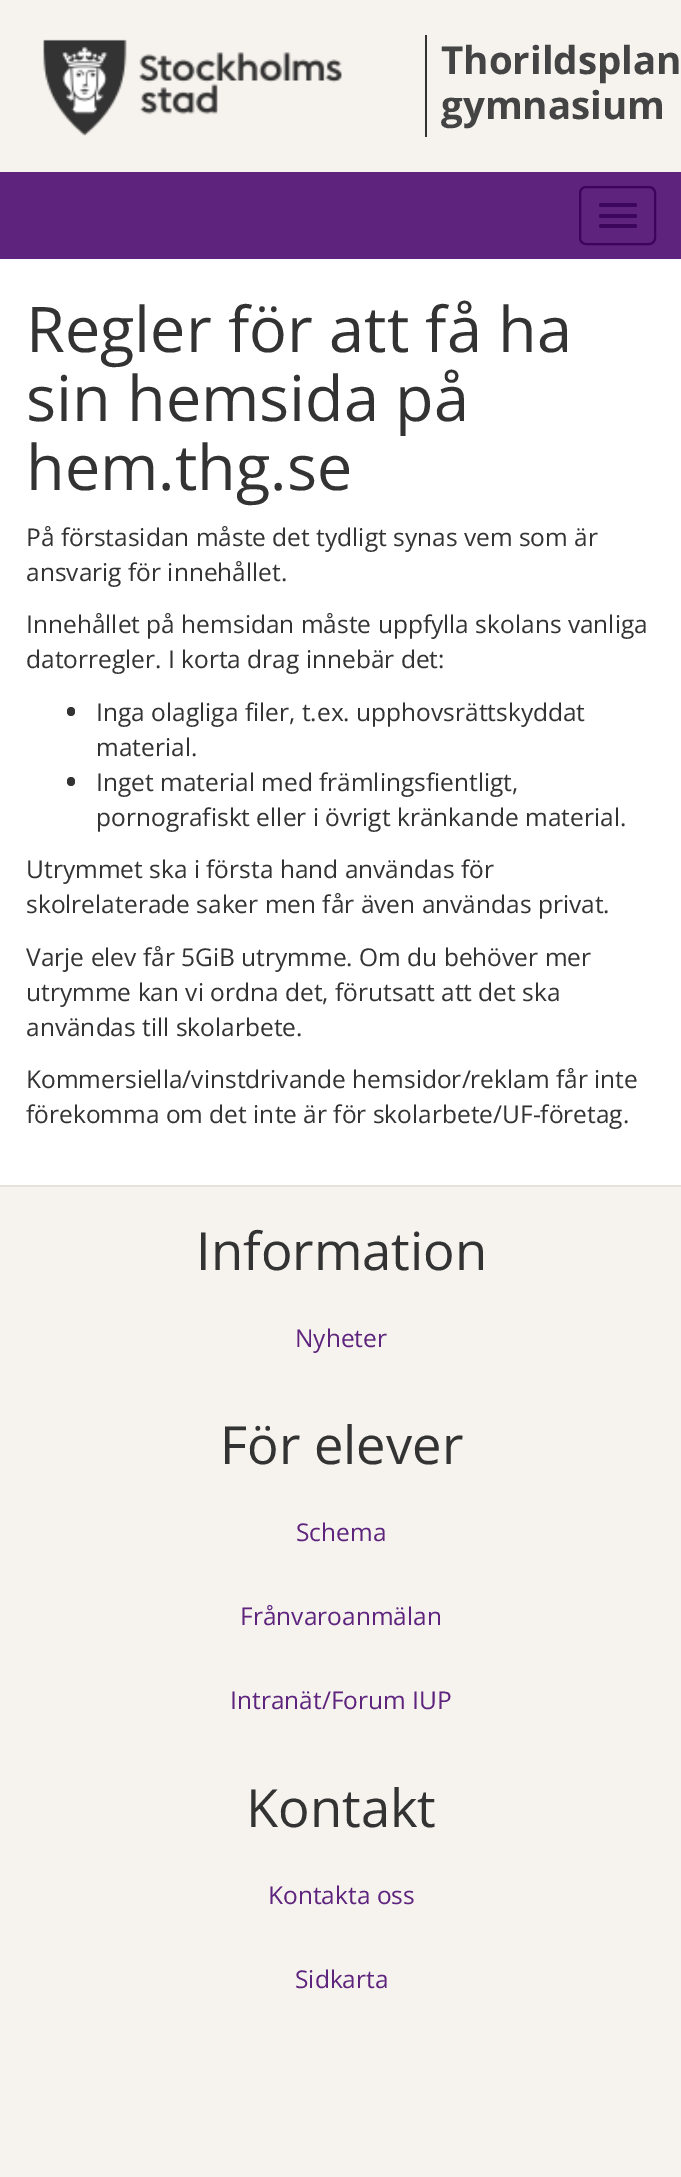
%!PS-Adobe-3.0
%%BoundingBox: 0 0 681 2177
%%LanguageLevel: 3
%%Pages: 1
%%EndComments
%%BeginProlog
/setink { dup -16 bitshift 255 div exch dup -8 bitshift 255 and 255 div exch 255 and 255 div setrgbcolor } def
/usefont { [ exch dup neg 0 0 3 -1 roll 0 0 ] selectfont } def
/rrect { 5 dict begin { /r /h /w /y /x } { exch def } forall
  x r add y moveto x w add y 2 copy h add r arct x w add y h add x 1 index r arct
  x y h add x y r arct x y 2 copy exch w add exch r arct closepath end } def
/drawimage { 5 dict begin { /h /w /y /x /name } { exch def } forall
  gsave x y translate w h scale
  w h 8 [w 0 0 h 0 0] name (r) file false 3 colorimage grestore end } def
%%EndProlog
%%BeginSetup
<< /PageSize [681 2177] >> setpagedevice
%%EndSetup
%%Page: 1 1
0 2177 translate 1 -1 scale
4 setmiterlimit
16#F6F3EE setink
0 0 681 2177 rectfill
(img1.raw) 43 39 299 97 drawimage
16#333333 setink
425 35 2 102 rectfill
/OpenSans-Bold 38.5 usefont
16#444444 setink
441 74 moveto (Thorildsplan) show
441 119 moveto (gymnasium) show
16#FFFFFF setink
0 259 681 926 rectfill
16#5D237D setink
0 172 681 87 rectfill
16#3D035D setink
2 setlinewidth
580 187 75 57 6 rrect stroke
16#3D065D setink
599 203 38 4 2 rrect fill
599 214 38 4 2 rrect fill
599 224 38 4 2 rrect fill
/OpenSans-Regular 63 usefont
16#333333 setink
[
    [(Regler för att få ha) 26 352]
    [(sin hemsida på) 26 421]
    [(hem.thg.se) 26 490]
] { aload pop moveto show } forall
/OpenSans-Regular 24.5 usefont
[
    [(På förstasidan måste det tydligt synas vem som är) 26 546]
    [(ansvarig för innehållet.) 26 581]
    [(Innehållet på hemsidan måste uppfylla skolans vanliga) 26 633]
    [(datorregler. I korta drag innebär det:) 26 668]
] { aload pop moveto show } forall
67 707 8 9 4 rrect fill
96 721 moveto (Inga olagliga filer, t.ex. upphovsrättskyddat) show
96 756 moveto (material.) show
67 777 8 9 4 rrect fill
[
    [(Inget material med främlingsfientligt,) 96 791]
    [(pornografiskt eller i övrigt kränkande material.) 96 826]
    [(Utrymmet ska i första hand användas för) 26 878]
    [(skolrelaterade saker men får även användas privat.) 26 913]
    [(Varje elev får 5GiB utrymme. Om du behöver mer) 26 966]
    [(utrymme kan vi ordna det, förutsatt att det ska) 26 1001]
    [(användas till skolarbete.) 26 1036]
    [(Kommersiella/vinstdrivande hemsidor/reklam får inte) 26 1088]
    [(förekomma om det inte är för skolarbete/UF-företag.) 26 1123]
] { aload pop moveto show } forall
16#E5E2DB setink
0 1185 681 2 rectfill
/OpenSans-Regular 52.5 usefont
16#333333 setink
196 1270 moveto (Information) show
/OpenSans-Regular 24.5 usefont
16#5D237D setink
295 1347 moveto (Nyheter) show
/OpenSans-Regular 52.5 usefont
16#333333 setink
220 1464 moveto (För elever) show
/OpenSans-Regular 24.5 usefont
16#5D237D setink
[
    [(Schema) 296 1541]
    [(Frånvaroanmälan) 240 1625]
    [(Intranät/Forum IUP) 230 1709]
] { aload pop moveto show } forall
/OpenSans-Regular 52.5 usefont
16#333333 setink
246 1827 moveto (Kontakt) show
/OpenSans-Regular 24.5 usefont
16#5D237D setink
268 1904 moveto (Kontakta oss) show
295 1988 moveto (Sidkarta) show
showpage
%%EOF
